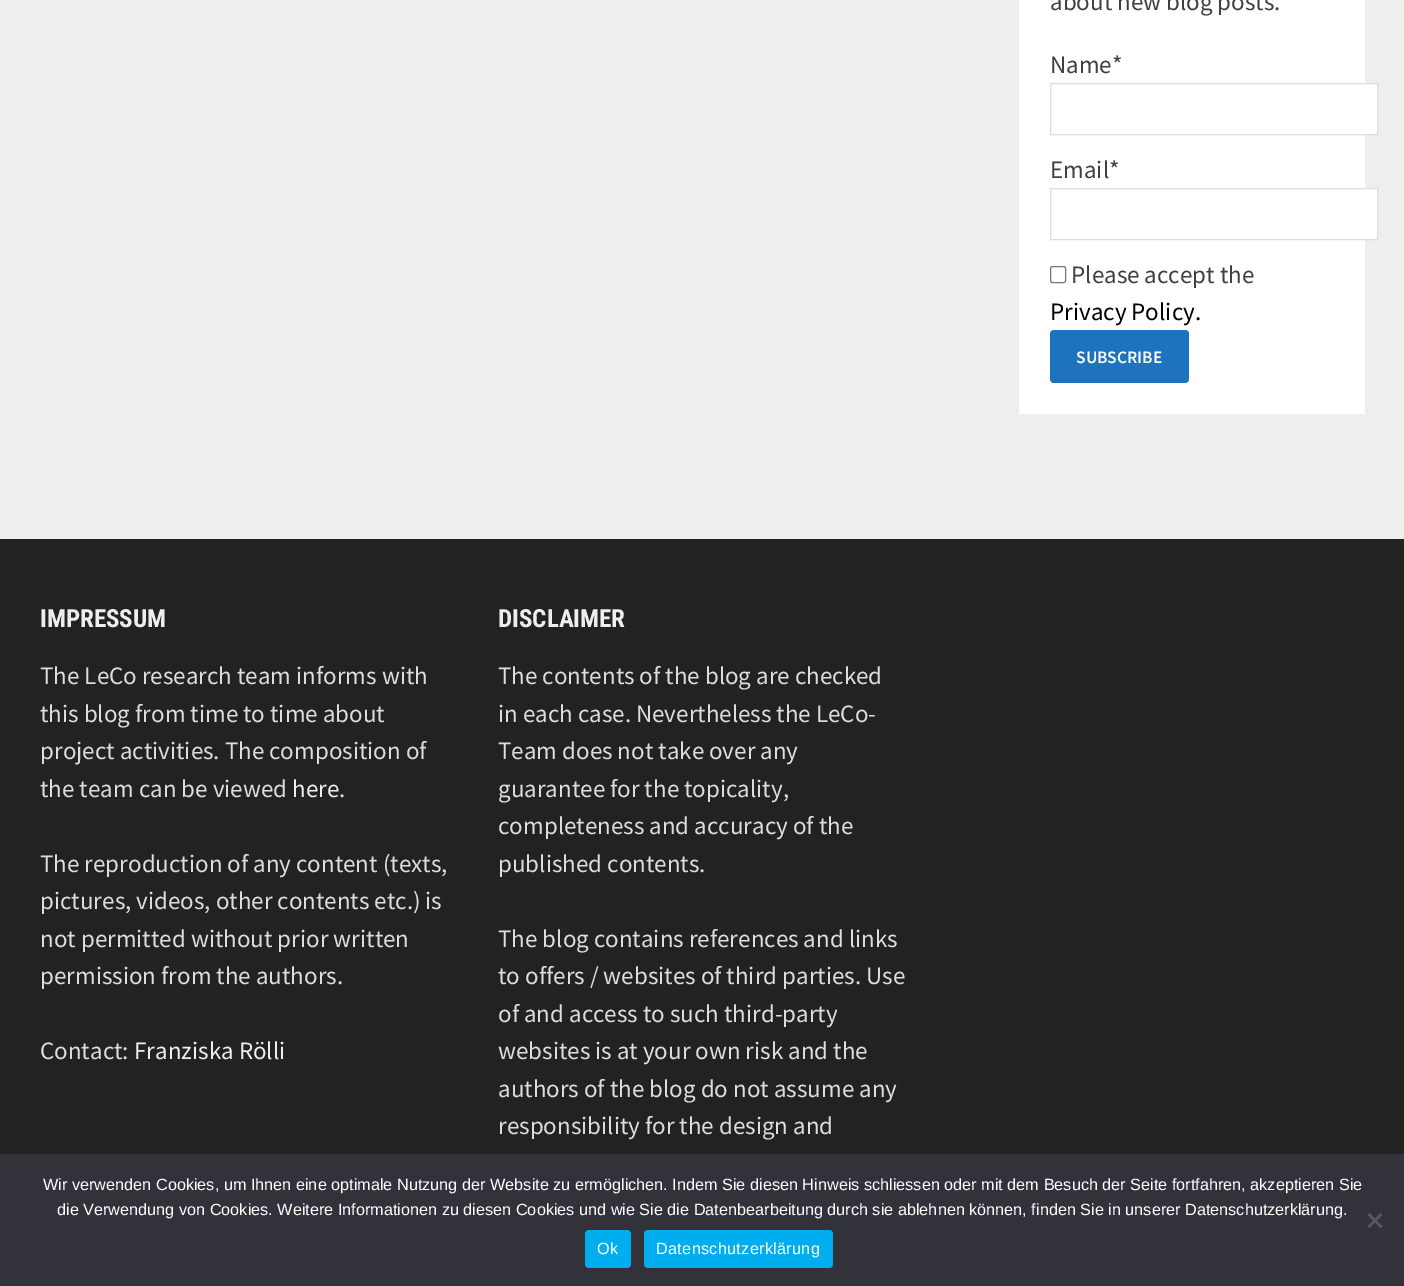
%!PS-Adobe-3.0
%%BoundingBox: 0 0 1404 1286
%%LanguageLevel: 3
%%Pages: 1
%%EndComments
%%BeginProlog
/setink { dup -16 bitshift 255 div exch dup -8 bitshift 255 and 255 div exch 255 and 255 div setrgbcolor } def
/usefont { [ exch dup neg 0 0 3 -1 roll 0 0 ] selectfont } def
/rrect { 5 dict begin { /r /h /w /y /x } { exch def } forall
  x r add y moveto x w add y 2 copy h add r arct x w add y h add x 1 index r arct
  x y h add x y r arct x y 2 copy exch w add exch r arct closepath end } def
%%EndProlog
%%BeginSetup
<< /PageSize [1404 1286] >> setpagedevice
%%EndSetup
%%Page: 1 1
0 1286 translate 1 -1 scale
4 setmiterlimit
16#EEEEEE setink
0 0 1404 1286 rectfill
16#FFFFFF setink
1019 0 346 414 rectfill
/SourceSansPro-Regular 25 usefont
16#404040 setink
1050 10 moveto (about new blog posts.) show
1050 73 moveto (Name*) show
16#FFFFFF setink
1365 84 12 50 rectfill
16#DDDDDD setink
1050.5 83.5 327 51 rectstroke
16#404040 setink
1050 178 moveto (Email*) show
16#FFFFFF setink
1365 189 12 50 rectfill
16#DDDDDD setink
1050.5 188.5 327 51 rectstroke
16#767676 setink
1050.5 266.5 15 16 2 rrect stroke
16#404040 setink
1071 283 moveto (Please accept the) show
16#000000 setink
1050 320 moveto (Privacy Policy.) show
16#1E73BE setink
1050 330 139 53 4 rrect fill
/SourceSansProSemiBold-SemiBold 17.5 usefont
16#FFFFFF setink
1076 363 moveto (SUBSCRIBE) show
16#222222 setink
0 539 1404 615 rectfill
/RobotoCondensed-Bold 25 usefont
16#EEEEEE setink
40 627 moveto (IMPRESSUM) show
/SourceSansPro-Regular 25 usefont
16#DDDDDD setink
[
    [(The LeCo research team informs with) 40 684]
    [(this blog from time to time about) 40 722]
    [(project activities. The composition of) 40 759]
    [(the team can be viewed) 40 797]
] { aload pop moveto show } forall
16#EEEEEE setink
292 797 moveto (here) show
16#DDDDDD setink
[
    [(.) 339 797]
    [(The reproduction of any content \(texts,) 40 872]
    [(pictures, videos, other contents etc.\) is) 40 909]
    [(not permitted without prior written) 40 947]
    [(permission from the authors.) 40 984]
    [(Contact:) 40 1059]
] { aload pop moveto show } forall
16#EEEEEE setink
134 1059 moveto (Franziska Rölli) show
/RobotoCondensed-Bold 25 usefont
498 627 moveto (DISCLAIMER) show
/SourceSansPro-Regular 25 usefont
16#DDDDDD setink
[
    [(The contents of the blog are checked) 498 684]
    [(in each case. Nevertheless the LeCo-) 498 722]
    [(Team does not take over any) 498 759]
    [(guarantee for the topicality,) 498 797]
    [(completeness and accuracy of the) 498 834]
    [(published contents.) 498 872]
    [(The blog contains references and links) 498 947]
    [(to offers / websites of third parties. Use) 498 984]
    [(of and access to such third-party) 498 1022]
    [(websites is at your own risk and the) 498 1059]
    [(authors of the blog do not assume any) 498 1097]
    [(responsibility for the design and) 498 1134]
] { aload pop moveto show } forall
16#32323A setink
0 1154 1404 132 rectfill
/LiberationSans-Regular 16.25 usefont
16#FFFFFF setink
43 1190 moveto (Wir verwenden Cookies, um Ihnen eine optimale Nutzung der Website zu ermöglichen. Indem Sie diesen Hinweis schliessen oder mit dem Besuch der Seite fortfahren, akzeptieren Sie) show
57 1215 moveto (die Verwendung von Cookies. Weitere Informationen zu diesen Cookies und wie Sie die Datenbearbeitung durch sie ablehnen können, finden Sie in unserer Datenschutzerklärung.) show
16#59595D setink
1380.5 1213 moveto 1382.5 1215 lineto 1369.5 1228 lineto 1367.5 1226.5 lineto closepath fill
1367.5 1215 moveto 1369.5 1213 lineto 1382.5 1226.5 lineto 1380.5 1228 lineto closepath fill
16#00AEEF setink
585 1230 46 38 4 rrect fill
16#FFFFFF setink
597 1254 moveto 0.3 0 (Ok) ashow
16#00AEEF setink
644 1230 189 38 4 rrect fill
16#FFFFFF setink
656 1254 moveto 0.3 0 (Datenschutzerklärung) ashow
showpage
%%EOF
